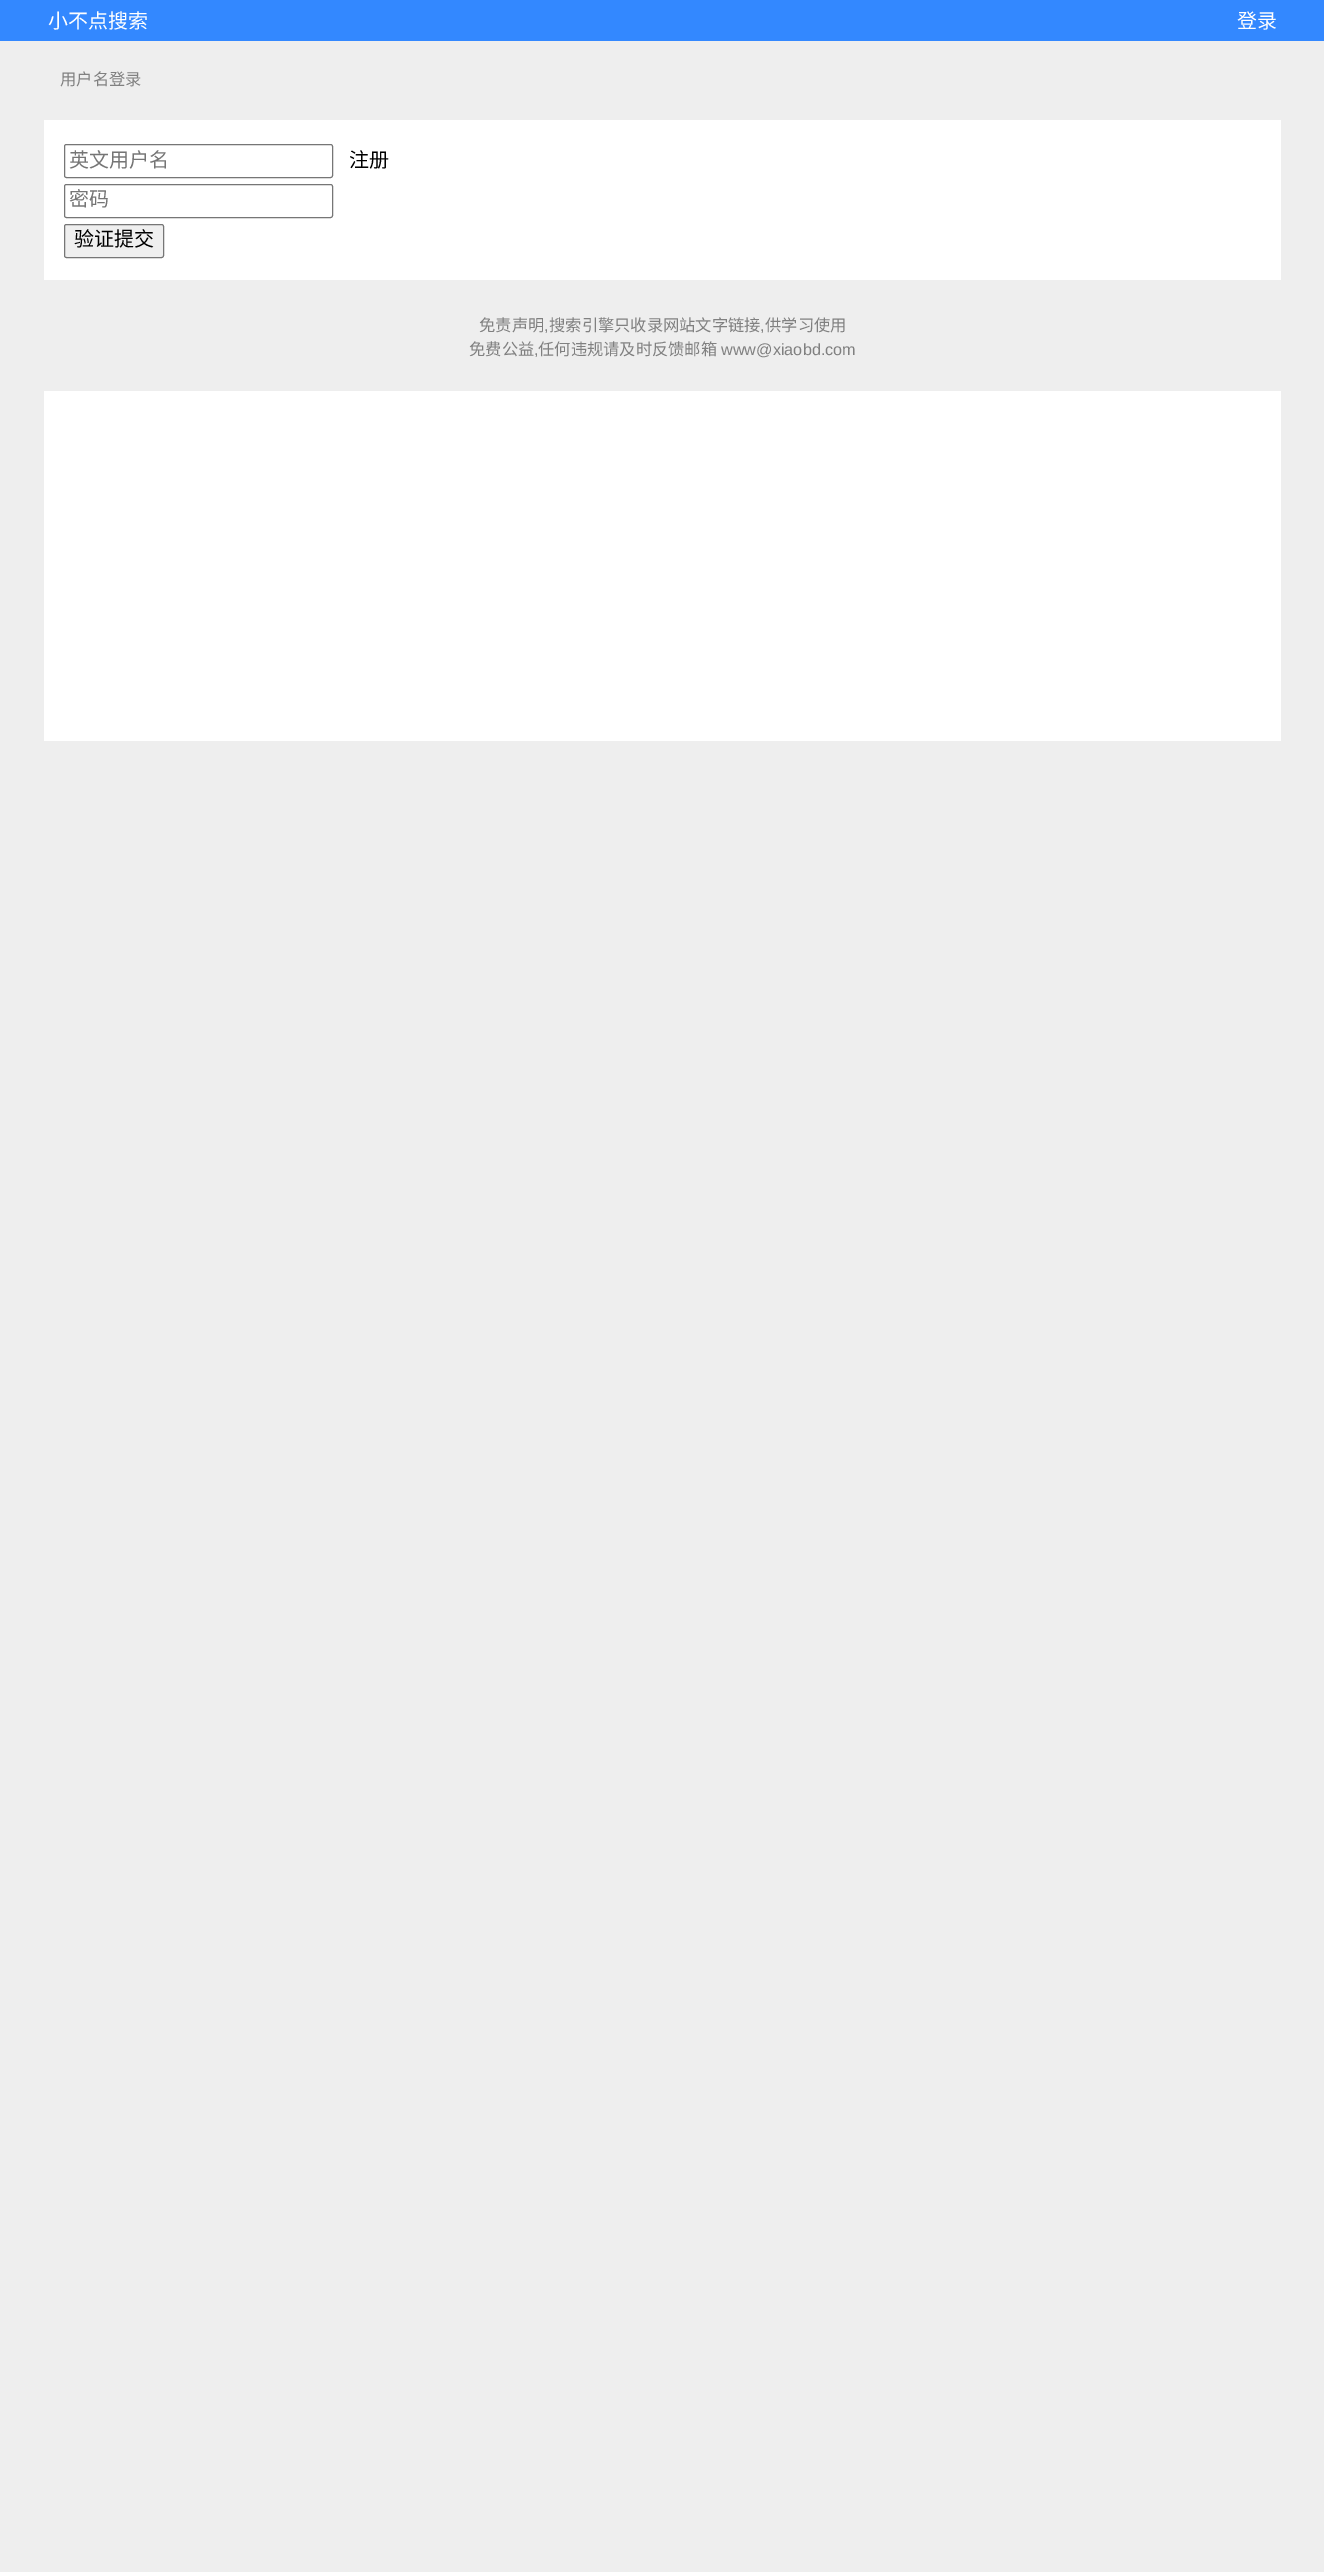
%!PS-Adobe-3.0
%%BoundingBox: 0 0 1324 2572
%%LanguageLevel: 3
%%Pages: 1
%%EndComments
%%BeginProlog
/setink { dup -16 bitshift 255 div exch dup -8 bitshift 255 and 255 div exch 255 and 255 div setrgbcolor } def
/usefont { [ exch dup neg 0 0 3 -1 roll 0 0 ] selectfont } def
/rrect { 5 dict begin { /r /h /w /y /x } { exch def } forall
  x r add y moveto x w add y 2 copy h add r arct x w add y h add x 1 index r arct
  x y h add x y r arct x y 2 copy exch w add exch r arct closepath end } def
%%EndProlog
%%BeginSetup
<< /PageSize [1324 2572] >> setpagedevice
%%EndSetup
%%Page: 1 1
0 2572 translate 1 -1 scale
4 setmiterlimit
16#EEEEEE setink
0 0 1324 2572 rectfill
16#3388FF setink
0 0 1324 41 rectfill
/NotoSansCJKSC-Regular 20 usefont
16#FFFFFF setink
48 28 moveto (小不点搜索) show
1237 28 moveto (登录) show
/NotoSansCJKSC-Regular 16.25 usefont
16#808080 setink
60 85 moveto (用户名登录) show
16#FFFFFF setink
44 120 1237 160 rectfill
16#767676 setink
64.5 144.5 268 33 2 rrect stroke
/NotoSansCJKSC-Regular 20 usefont
16#757575 setink
69 167 moveto (英文用户名) show
16#000000 setink
349 167 moveto (注册) show
16#767676 setink
64.5 184.5 268 33 2 rrect stroke
16#757575 setink
69 206 moveto (密码) show
16#EFEFEF setink
64.5 224.5 99 33 2 rrect gsave fill grestore
16#767676 setink
stroke
16#000000 setink
74 246 moveto (验证提交) show
/NotoSansCJKSC-Regular 16.25 usefont
16#808080 setink
479 331 moveto (免责声明) show
/LiberationSans-Regular 16.25 usefont
544 331 moveto (,) show
/NotoSansCJKSC-Regular 16.25 usefont
549 331 moveto (搜索引擎只收录网站文字链接) show
/LiberationSans-Regular 16.25 usefont
760 331 moveto (,) show
/NotoSansCJKSC-Regular 16.25 usefont
765 331 moveto (供学习使用) show
469 355 moveto (免费公益) show
/LiberationSans-Regular 16.25 usefont
534 355 moveto (,) show
/NotoSansCJKSC-Regular 16.25 usefont
538 355 moveto (任何违规请及时反馈邮箱) show
/LiberationSans-Regular 16.25 usefont
721 355 moveto (www@xiaobd.com) show
16#FFFFFF setink
44 391 1237 350 rectfill
showpage
%%EOF
